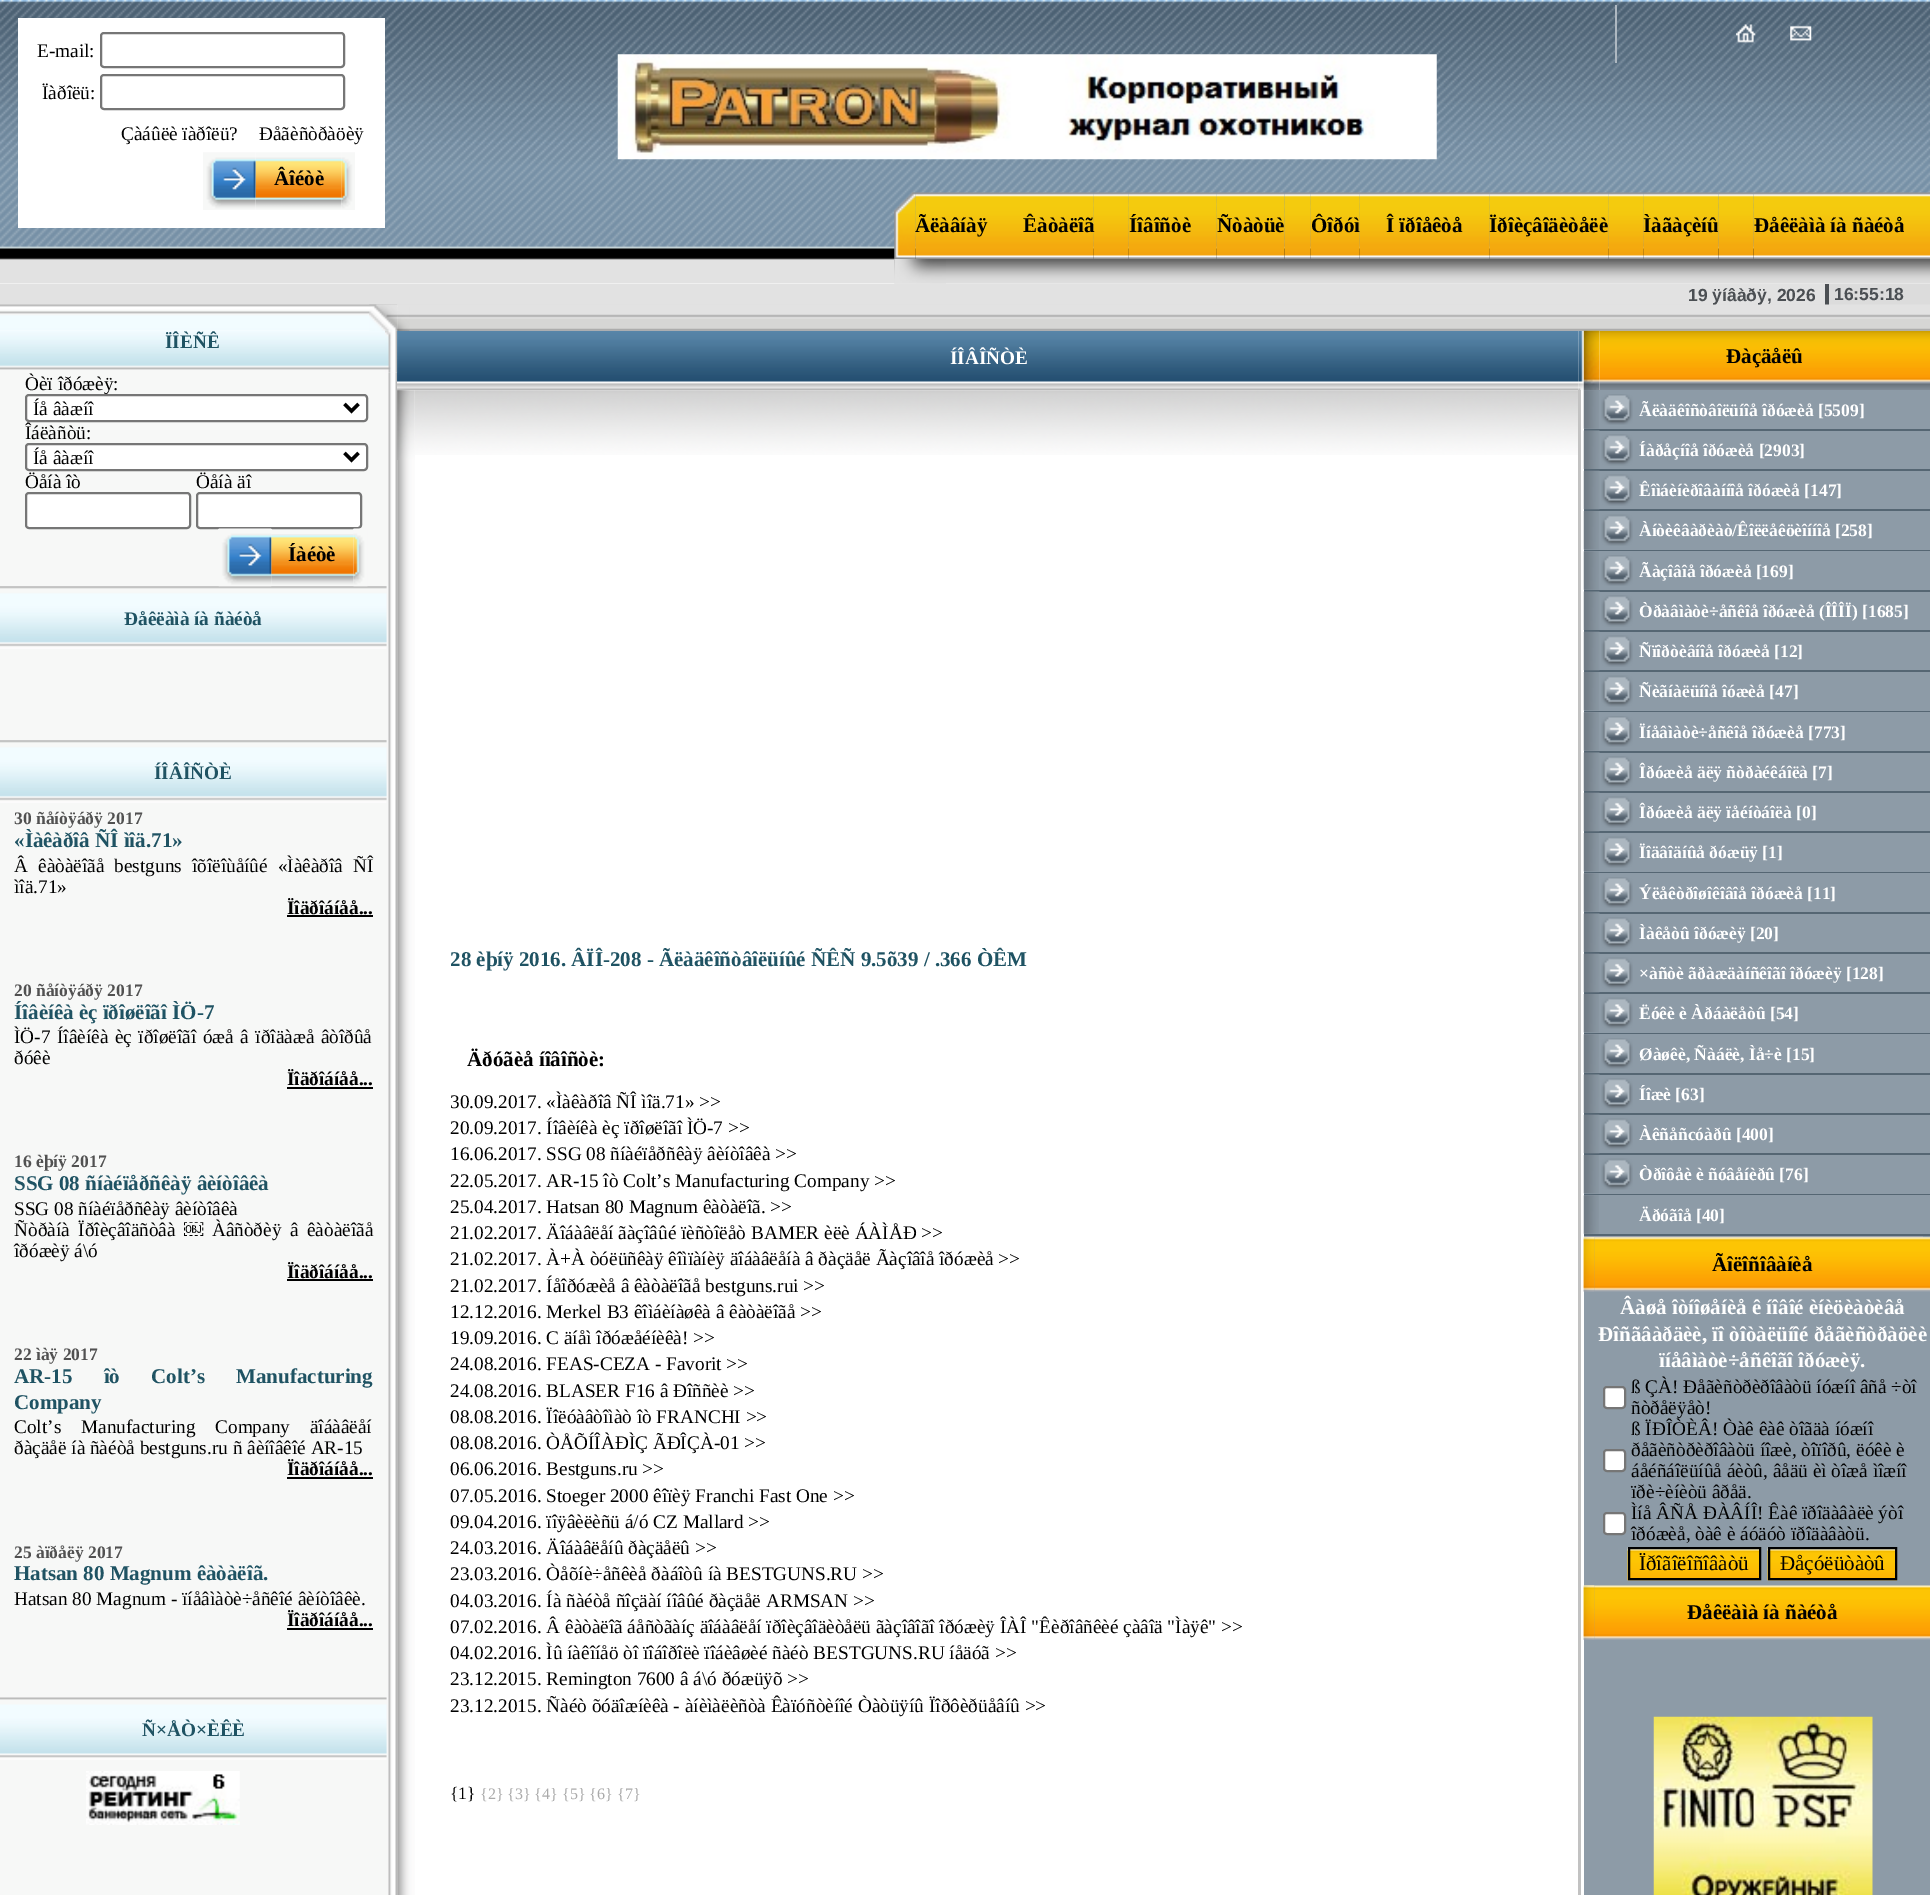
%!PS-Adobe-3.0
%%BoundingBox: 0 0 1930 1895
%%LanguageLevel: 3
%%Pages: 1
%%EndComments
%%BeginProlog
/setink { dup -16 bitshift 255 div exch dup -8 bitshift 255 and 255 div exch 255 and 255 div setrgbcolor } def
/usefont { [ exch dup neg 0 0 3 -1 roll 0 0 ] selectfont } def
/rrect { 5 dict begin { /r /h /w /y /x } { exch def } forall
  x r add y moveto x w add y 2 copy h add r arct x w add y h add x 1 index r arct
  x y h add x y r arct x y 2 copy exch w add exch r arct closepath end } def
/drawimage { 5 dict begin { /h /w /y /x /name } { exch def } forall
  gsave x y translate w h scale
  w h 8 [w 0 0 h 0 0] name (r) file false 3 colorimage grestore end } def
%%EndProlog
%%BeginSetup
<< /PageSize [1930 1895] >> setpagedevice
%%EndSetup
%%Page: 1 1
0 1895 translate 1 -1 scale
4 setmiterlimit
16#FFFFFF setink
0 0 1930 1895 rectfill
(img4.raw) 0 0 1930 284 drawimage
18 18 367 210 rectfill
/LiberationSerif-Regular 19.25 usefont
16#000000 setink
37 57 moveto (E-mail:) show
16#767676 setink
2 setlinewidth
101 33 243 34 3 rrect stroke
16#000000 setink
42 99 moveto (Ïàðîëü:) show
16#767676 setink
101 75 243 34 3 rrect stroke
16#000000 setink
121 140 moveto (Çàáûëè ïàðîëü?) show
259 140 moveto (Ðåãèñòðàöèÿ) show
(img2.raw) 255 152 87 58 drawimage
(img1.raw) 203 152 53 58 drawimage
/LiberationSerif-Bold 21 usefont
274 185 moveto (Âîéòè) show
(img3.raw) 341 152 14 58 drawimage
16#AEB8C1 setink
1615 5 2 58 rectfill
(img5.raw) 1736 24 20 19 drawimage
(img6.raw) 1790 25 22 16 drawimage
(img7.raw) 617 54 820 106 drawimage
(img9.raw) 915 192 72 67 drawimage
(img8.raw) 894 192 22 67 drawimage
(img10.raw) 987 192 35 67 drawimage
16#000000 setink
915 232 moveto (Ãëàâíàÿ) show
(img11.raw) 1022 192 72 67 drawimage
(img12.raw) 1093 192 36 67 drawimage
1023 232 moveto (Êàòàëîã) show
(img13.raw) 1128 192 62 67 drawimage
(img14.raw) 1190 192 27 67 drawimage
1129 232 moveto (Íîâîñòè) show
(img15.raw) 1216 192 69 67 drawimage
1217 232 moveto (Ñòàòüè) show
(img16.raw) 1284 192 27 67 drawimage
(img17.raw) 1310 192 50 67 drawimage
(img18.raw) 1359 192 27 67 drawimage
1311 232 moveto (Ôîðóì) show
(img19.raw) 1386 192 77 67 drawimage
1386 232 moveto (Î ïðîåêòå) show
(img20.raw) 1463 192 27 67 drawimage
(img21.raw) 1489 192 120 67 drawimage
1489 232 moveto (Ïðîèçâîäèòåëè) show
(img22.raw) 1608 192 36 67 drawimage
(img23.raw) 1643 192 76 67 drawimage
1643 232 moveto (Ìàãàçèíû) show
(img24.raw) 1718 192 36 67 drawimage
(img25.raw) 1753 192 151 67 drawimage
1754 232 moveto (Ðåêëàìà íà ñàéòå) show
(img26.raw) 1904 192 26 67 drawimage
(img27.raw) 894 259 1036 25 drawimage
(img28.raw) 894 259 52 25 drawimage
[
    [1829 284 101 21 16#DCDCDC]
    [0 284 1825 21 16#E2E2E2]
    [1825 284 4 21 16#4B4F53]
    [0 370 397 1525 16#F7F8F7]
] { aload pop setink rectfill } forall
(img38.raw) 0 586 387 63 drawimage
(img38.raw) 0 740 387 63 drawimage
(img39.raw) 0 1697 387 63 drawimage
(img41.raw) 386 372 12 1523 drawimage
(img42.raw) 397 330 2 61 drawimage
(img29.raw) 0 304 398 27 drawimage
(img44.raw) 399 330 1180 61 drawimage
(img48.raw) 1578 330 6 61 drawimage
(img50.raw) 1599 330 331 60 drawimage
(img31.raw) 397 304 1533 27 drawimage
/LiberationSans-Bold 17.5 usefont
16#4B4F53 setink
1688 301 moveto (19 ÿíâàðÿ, 2026) show
1834 300 moveto (16:55:18) show
(img30.raw) 369 304 29 27 drawimage
(img32.raw) 397 307 13 24 drawimage
(img33.raw) 0 331 385 39 drawimage
/LiberationSerif-Bold 19.25 usefont
16#1F5363 setink
165 348 moveto (ÏÎÈÑÊ) show
(img34.raw) 385 330 13 43 drawimage
/LiberationSerif-Regular 19.25 usefont
16#000000 setink
25 390 moveto (Òèï îðóæèÿ:) show
16#FFFFFF setink
26 395 341 26 3 rrect gsave fill grestore
16#767676 setink
stroke
16#000000 setink
3.5 setlinewidth
344.5 404 moveto 351.5 411 lineto 358.5 404 lineto stroke
33 415 moveto (Íå âàæíî) show
25 439 moveto (Îáëàñòü:) show
16#FFFFFF setink
26 444 341 26 3 rrect gsave fill grestore
16#767676 setink
2 setlinewidth
stroke
16#000000 setink
3.5 setlinewidth
344.5 453 moveto 351.5 460 lineto 358.5 453 lineto stroke
33 464 moveto (Íå âàæíî) show
25 488 moveto (Öåíà îò) show
16#FFFFFF setink
26 493 164 35 3 rrect gsave fill grestore
16#767676 setink
2 setlinewidth
stroke
16#000000 setink
196 488 moveto (Öåíà äî) show
16#FFFFFF setink
197 493 164 35 3 rrect gsave fill grestore
16#767676 setink
stroke
(img36.raw) 271 534 83 51 drawimage
(img35.raw) 218 528 54 59 drawimage
/LiberationSerif-Bold 21 usefont
16#000000 setink
288 561 moveto (Íàéòè) show
(img37.raw) 353 528 15 59 drawimage
/LiberationSerif-Bold 19.25 usefont
16#1F5363 setink
124 625 moveto (Ðåêëàìà íà ñàéòå) show
154 779 moveto (ÍÎÂÎÑÒÈ) show
/LiberationSerif-Bold 17.5 usefont
16#515151 setink
14 824 moveto (30 ñåíòÿáðÿ 2017) show
/LiberationSerif-Bold 21 usefont
16#1F5363 setink
14 847 moveto («Ìàêàðîâ ÑÎ ìîä.71») show
/LiberationSerif-Regular 19.25 usefont
16#000000 setink
14 872 moveto 5.25 0 32 (Â êàòàëîãå bestguns îõîëîùåíûé «Ìàêàðîâ ÑÎ) widthshow
14 893 moveto (ìîä.71») show
/LiberationSerif-Bold 19.25 usefont
287 914 moveto (Ïîäðîáíåå...) show
287 915 86 2 rectfill
/LiberationSerif-Bold 17.5 usefont
16#515151 setink
14 996 moveto (20 ñåíòÿáðÿ 2017) show
/LiberationSerif-Bold 21 usefont
16#1F5363 setink
14 1019 moveto (Íîâèíêà èç ïðîøëîãî ÌÖ-7) show
/LiberationSerif-Regular 19.25 usefont
16#000000 setink
14 1043 moveto 1.75 0 32 (ÌÖ-7 Íîâèíêà èç ïðîøëîãî óæå â ïðîäàæå âòîðûå) widthshow
14 1064 moveto (ðóêè) show
/LiberationSerif-Bold 19.25 usefont
287 1085 moveto (Ïîäðîáíåå...) show
287 1087 86 2 rectfill
/LiberationSerif-Bold 17.5 usefont
16#515151 setink
14 1167 moveto (16 èþíÿ 2017) show
/LiberationSerif-Bold 21 usefont
16#1F5363 setink
14 1190 moveto (SSG 08 ñíàéïåðñêàÿ âèíòîâêà) show
/LiberationSerif-Regular 19.25 usefont
16#000000 setink
14 1215 moveto (SSG 08 ñíàéïåðñêàÿ âèíòîâêà) show
14 1236 moveto 3.75 0 32 (Ñòðàíà Ïðîèçâîäñòâà ￼ Àâñòðèÿ â êàòàëîãå) widthshow
14 1257 moveto (îðóæèÿ á\\ó) show
/LiberationSerif-Bold 19.25 usefont
287 1278 moveto (Ïîäðîáíåå...) show
287 1279 86 2 rectfill
/LiberationSerif-Bold 17.5 usefont
16#515151 setink
14 1360 moveto (22 ìàÿ 2017) show
/LiberationSerif-Bold 21 usefont
16#1F5363 setink
14 1383 moveto 26 0 32 (AR-15 îò Colt’s Manufacturing) widthshow
14 1409 moveto (Company) show
/LiberationSerif-Regular 19.25 usefont
16#000000 setink
14 1433 moveto 15 0 32 (Colt’s Manufacturing Company äîáàâëåí) widthshow
14 1454 moveto (ðàçäåë íà ñàéòå bestguns.ru ñ âèíîâêîé AR-15) show
/LiberationSerif-Bold 19.25 usefont
287 1475 moveto (Ïîäðîáíåå...) show
287 1477 86 2 rectfill
/LiberationSerif-Bold 17.5 usefont
16#515151 setink
14 1558 moveto (25 àïðåëÿ 2017) show
/LiberationSerif-Bold 21 usefont
16#1F5363 setink
14 1580 moveto (Hatsan 80 Magnum êàòàëîã.) show
/LiberationSerif-Regular 19.25 usefont
16#000000 setink
14 1605 moveto (Hatsan 80 Magnum - ïíåâìàòè÷åñêîé âèíòîâêè.) show
/LiberationSerif-Bold 19.25 usefont
287 1626 moveto (Ïîäðîáíåå...) show
287 1628 86 2 rectfill
16#1F5363 setink
142 1736 moveto (Ñ×ÅÒ×ÈÊÈ) show
(img40.raw) 86 1771 154 54 drawimage
(img43.raw) 397 330 2 60 drawimage
16#FFFFFF setink
950 364 moveto (ÍÎÂÎÑÒÈ) show
(img45.raw) 397 390 18 1505 drawimage
(img47.raw) 414 390 1164 65 drawimage
(img46.raw) 397 390 18 70 drawimage
/LiberationSerif-Bold 21 usefont
16#1F5363 setink
450 966 moveto (28 èþíÿ 2016. ÂÏÎ-208 - Ãëàäêîñòâîëüíûé ÑÊÑ 9.5õ39 / .366 ÒÊM) show
16#000000 setink
467 1066 moveto (Äðóãèå íîâîñòè:) show
/LiberationSerif-Regular 19.25 usefont
[
    [(30.09.2017. «Ìàêàðîâ ÑÎ ìîä.71» >>) 450 1108]
    [(20.09.2017. Íîâèíêà èç ïðîøëîãî ÌÖ-7 >>) 450 1134]
    [(16.06.2017. SSG 08 ñíàéïåðñêàÿ âèíòîâêà >>) 450 1160]
    [(22.05.2017. AR-15 îò Colt’s Manufacturing Company >>) 450 1187]
    [(25.04.2017. Hatsan 80 Magnum êàòàëîã. >>) 450 1213]
    [(21.02.2017. Äîáàâëåí ãàçîâûé ïèñòîëåò BAMER èëè ÁÀÌÅÐ >>) 450 1239]
    [(21.02.2017. À+À òóëüñêàÿ êîìïàíèÿ äîáàâëåíà â ðàçäåë Ãàçîâîå îðóæèå >>) 450 1265]
    [(21.02.2017. Íåîðóæèå â êàòàëîãå bestguns.rui >>) 450 1292]
    [(12.12.2016. Merkel B3 êîìáèíàøêà â êàòàëîãå >>) 450 1318]
    [(19.09.2016. C äíåì îðóæåéíèêà! >>) 450 1344]
    [(24.08.2016. FEAS-CEZA - Favorit >>) 450 1370]
    [(24.08.2016. BLASER F16 â Ðîññèè >>) 450 1397]
    [(08.08.2016. Ïîëóàâòîìàò îò FRANCHI >>) 450 1423]
    [(08.08.2016. ÒÅÕÍÎÀÐÌÇ ÃÐÎÇÀ-01 >>) 450 1449]
    [(06.06.2016. Bestguns.ru >>) 450 1475]
    [(07.05.2016. Stoeger 2000 êîïèÿ Franchi Fast One >>) 450 1502]
    [(09.04.2016. ïîÿâèëèñü á/ó CZ Mallard >>) 450 1528]
    [(24.03.2016. Äîáàâëåíû ðàçäåëû >>) 450 1554]
    [(23.03.2016. Òåõíè÷åñêèå ðàáîòû íà BESTGUNS.RU >>) 450 1580]
    [(04.03.2016. Íà ñàéòå ñîçäàí íîâûé ðàçäåë ARMSAN >>) 450 1607]
    [(07.02.2016. Â êàòàëîã áåñòãàíç äîáàâëåí ïðîèçâîäèòåëü ãàçîâîãî îðóæèÿ ÎÀÎ "Êèðîâñêèé çàâîä "Ìàÿê" >>) 450 1633]
    [(04.02.2016. Ìû íàêîíåö òî ïîáîðîëè ïîáèâøèé ñàéò BESTGUNS.RU íåäóã >>) 450 1659]
    [(23.12.2015. Remington 7600 â á\\ó ðóæüÿõ >>) 450 1685]
    [(23.12.2015. Ñàéò õóäîæíèêà - àíèìàëèñòà Êàïóñòèíîé Òàòüÿíû Ïîðôèðüåâíû >>) 450 1712]
] { aload pop moveto show } forall
/LiberationSerif-Regular 17.5 usefont
450 1799 moveto ({1}) show
/LiberationSerif-Regular 16 usefont
16#AAAAAA setink
[
    [({2}) 480 1799]
    [({3}) 507 1799]
    [({4}) 534 1799]
    [({5}) 562 1799]
    [({6}) 589 1799]
    [({7}) 617 1799]
] { aload pop moveto show } forall
16#8D9BA7 setink
1584 390 346 1505 rectfill
(img49.raw) 1583 330 17 61 drawimage
/LiberationSerif-Bold 21 usefont
16#000000 setink
1726 363 moveto (Ðàçäåëû) show
16#C2C2C2 setink
1578 390 3 1505 rectfill
(img51.raw) 1583 390 16 39 drawimage
(img52.raw) 1601 394 32 31 drawimage
/LiberationSerif-Bold 17.5 usefont
16#FFFFFF setink
1639 416 moveto (Ãëàäêîñòâîëüíîå îðóæèå [5509]) show
16#556673 setink
1584 429 346 2 rectfill
(img53.raw) 1583 430 17 39 drawimage
(img54.raw) 1601 434 32 32 drawimage
16#FFFFFF setink
1639 456 moveto (Íàðåçíîå îðóæèå [2903]) show
16#556673 setink
1584 469 346 2 rectfill
1584 509 346 2 rectfill
(img55.raw) 1583 470 17 40 drawimage
(img56.raw) 1601 474 32 32 drawimage
16#FFFFFF setink
1639 496 moveto (Êîìáèíèðîâàííîå îðóæèå [147]) show
(img57.raw) 1583 511 16 39 drawimage
(img58.raw) 1601 514 32 32 drawimage
1639 536 moveto (Àíòèêâàðèàò/Êîëëåêöèîííîå [258]) show
16#556673 setink
1584 550 346 1 rectfill
(img59.raw) 1583 551 16 39 drawimage
(img52.raw) 1601 555 32 31 drawimage
16#FFFFFF setink
1639 577 moveto (Ãàçîâîå îðóæèå [169]) show
16#556673 setink
1584 590 346 2 rectfill
(img53.raw) 1583 591 17 39 drawimage
(img54.raw) 1601 595 32 32 drawimage
16#FFFFFF setink
1639 617 moveto (Òðàâìàòè÷åñêîå îðóæèå \(ÎÎÎÏ\) [1685]) show
16#556673 setink
1584 630 346 2 rectfill
1584 670 346 2 rectfill
(img55.raw) 1583 631 17 40 drawimage
(img56.raw) 1601 635 32 32 drawimage
16#FFFFFF setink
1639 657 moveto (Ñïîðòèâíîå îðóæèå [12]) show
(img57.raw) 1583 672 16 39 drawimage
(img58.raw) 1601 675 32 32 drawimage
1639 697 moveto (Ñèãíàëüíîå îóæèå [47]) show
16#556673 setink
1584 711 346 1 rectfill
(img59.raw) 1583 712 16 39 drawimage
(img52.raw) 1601 716 32 31 drawimage
16#FFFFFF setink
1639 738 moveto (Ïíåâìàòè÷åñêîå îðóæèå [773]) show
16#556673 setink
1584 751 346 2 rectfill
(img53.raw) 1583 752 17 39 drawimage
(img54.raw) 1601 756 32 32 drawimage
16#FFFFFF setink
1639 778 moveto (Îðóæèå äëÿ ñòðàéêáîëà [7]) show
16#556673 setink
1584 791 346 2 rectfill
1584 831 346 2 rectfill
(img55.raw) 1583 792 17 40 drawimage
(img56.raw) 1601 796 32 32 drawimage
16#FFFFFF setink
1639 818 moveto (Îðóæèå äëÿ ïåéíòáîëà [0]) show
(img57.raw) 1583 833 16 39 drawimage
(img58.raw) 1601 836 32 32 drawimage
1639 858 moveto (Ïîäâîäíûå ðóæüÿ [1]) show
16#556673 setink
1584 872 346 1 rectfill
(img59.raw) 1583 873 16 39 drawimage
(img52.raw) 1601 877 32 31 drawimage
16#FFFFFF setink
1639 899 moveto (Ýëåêòðîøîêîâîå îðóæèå [11]) show
16#556673 setink
1584 912 346 2 rectfill
(img53.raw) 1583 913 17 39 drawimage
(img54.raw) 1601 917 32 32 drawimage
16#FFFFFF setink
1639 939 moveto (Ìàêåòû îðóæèÿ [20]) show
16#556673 setink
1584 952 346 2 rectfill
1584 992 346 2 rectfill
(img55.raw) 1583 953 17 40 drawimage
(img56.raw) 1601 957 32 32 drawimage
16#FFFFFF setink
1639 979 moveto (×àñòè ãðàæäàíñêîãî îðóæèÿ [128]) show
(img57.raw) 1583 994 16 39 drawimage
(img58.raw) 1601 997 32 32 drawimage
1639 1019 moveto (Ëóêè è Àðáàëåòû [54]) show
16#556673 setink
1584 1033 346 1 rectfill
(img59.raw) 1583 1034 16 39 drawimage
(img52.raw) 1601 1038 32 31 drawimage
16#FFFFFF setink
1639 1060 moveto (Øàøêè, Ñàáëè, Ìå÷è [15]) show
16#556673 setink
1584 1073 346 2 rectfill
(img53.raw) 1583 1074 17 39 drawimage
(img54.raw) 1601 1078 32 32 drawimage
16#FFFFFF setink
1639 1100 moveto (Íîæè [63]) show
16#556673 setink
1584 1113 346 2 rectfill
1584 1153 346 2 rectfill
(img55.raw) 1583 1114 17 40 drawimage
(img56.raw) 1601 1118 32 32 drawimage
16#FFFFFF setink
1639 1140 moveto (Àêñåñcóàðû [400]) show
(img57.raw) 1583 1155 16 39 drawimage
(img58.raw) 1601 1158 32 32 drawimage
1639 1180 moveto (Òðîôåè è ñóâåíèðû [76]) show
16#556673 setink
1584 1194 346 1 rectfill
(img59.raw) 1583 1195 16 39 drawimage
16#FFFFFF setink
1639 1221 moveto (Äðóãîå [40]) show
16#556673 setink
1584 1234 346 2 rectfill
16#9FA3AE setink
1584 1236 339 2 rectfill
(img60.raw) 1583 1237 12 55 drawimage
(img62.raw) 1594 1237 336 55 drawimage
(img61.raw) 1583 1237 12 55 drawimage
/LiberationSerif-Bold 21 usefont
16#000000 setink
1712 1271 moveto (Ãîëîñîâàíèå) show
16#FFFFFF setink
[
    [(Âàøå îòíîøåíèå ê íîâîé èíèöèàòèâå) 1620 1314]
    [(Ðîñãâàðäèè, ïî òîòàëüíîé ðåãèñòðàöèè) 1598 1341]
    [(ïíåâìàòè÷åñêîãî îðóæèÿ.) 1659 1367]
] { aload pop moveto show } forall
1604 1387 21 21 3 rrect gsave fill grestore
16#767676 setink
stroke
/LiberationSerif-Regular 19.25 usefont
16#000000 setink
1631 1393 moveto (ß ÇÀ! Ðåãèñòðèðîâàòü íóæíî âñå ÷òî) show
1631 1414 moveto (ñòðåëÿåò!) show
16#FFFFFF setink
1604 1450 21 21 3 rrect gsave fill grestore
16#767676 setink
stroke
16#000000 setink
[
    [(ß ÏÐÎÒÈÂ! Òàê êàê òîãäà íóæíî) 1631 1435]
    [(ðåãèñòðèðîâàòü íîæè, òîïîðû, ëóêè è) 1631 1456]
    [(áåéñáîëüíûå áèòû, âåäü èì òîæå ìîæíî) 1631 1477]
    [(ïðè÷èíèòü âðåä.) 1631 1498]
] { aload pop moveto show } forall
16#FFFFFF setink
1604 1513 21 21 3 rrect gsave fill grestore
16#767676 setink
stroke
16#000000 setink
1631 1519 moveto (Ìíå ÂÑÅ ÐÀÂÍÎ! Êàê ïðîäàâàëè ýòî) show
1631 1540 moveto (îðóæèå, òàê è áóäóò ïðîäàâàòü.) show
(img63.raw) 1627 1547 134 34 drawimage
1629 1548 131 31 rectstroke
/LiberationSerif-Regular 21 usefont
1639 1570 moveto (Ïðîãîëîñîâàòü) show
(img64.raw) 1767 1547 130 34 drawimage
1769 1548 127 31 rectstroke
1780 1570 moveto (Ðåçóëüòàòû) show
(img65.raw) 1583 1585 12 55 drawimage
(img67.raw) 1594 1585 336 55 drawimage
(img66.raw) 1583 1585 12 55 drawimage
/LiberationSerif-Bold 21 usefont
1687 1619 moveto (Ðåêëàìà íà ñàéòå) show
(img68.raw) 1653 1716 220 179 drawimage
showpage
%%EOF
